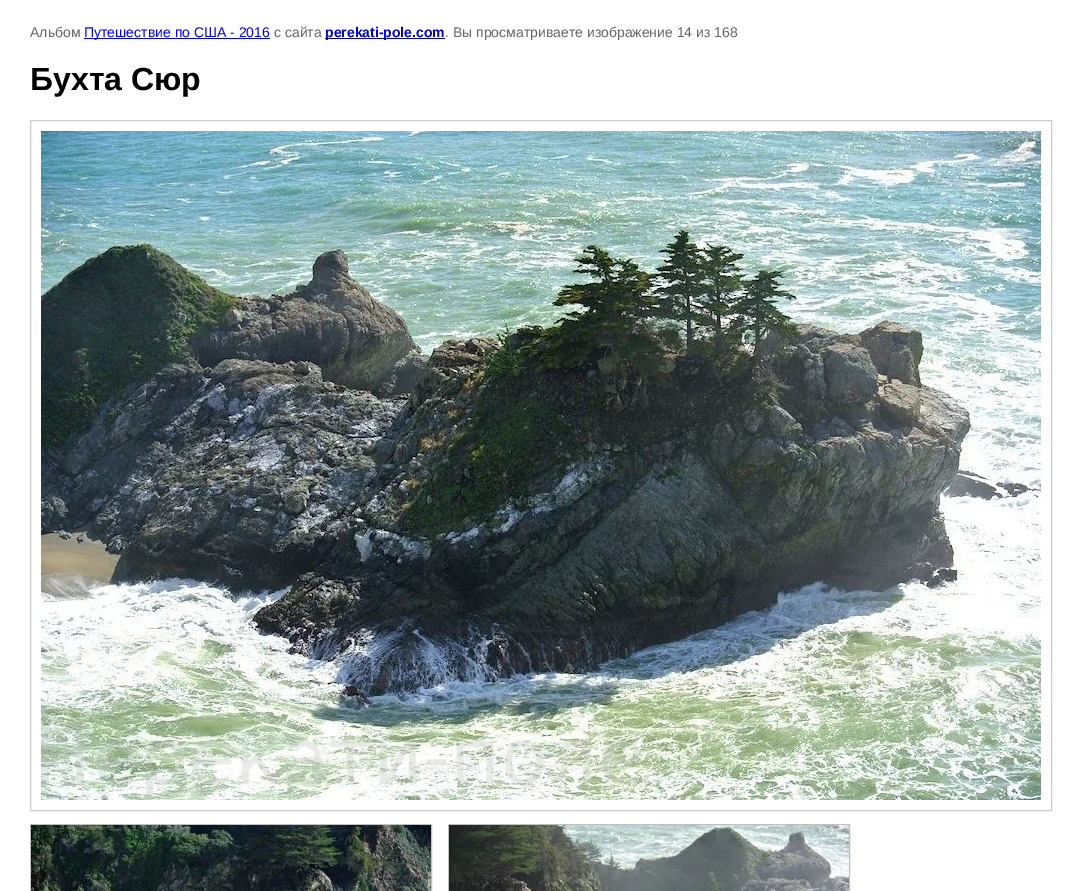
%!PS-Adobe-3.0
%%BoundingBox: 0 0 1082 891
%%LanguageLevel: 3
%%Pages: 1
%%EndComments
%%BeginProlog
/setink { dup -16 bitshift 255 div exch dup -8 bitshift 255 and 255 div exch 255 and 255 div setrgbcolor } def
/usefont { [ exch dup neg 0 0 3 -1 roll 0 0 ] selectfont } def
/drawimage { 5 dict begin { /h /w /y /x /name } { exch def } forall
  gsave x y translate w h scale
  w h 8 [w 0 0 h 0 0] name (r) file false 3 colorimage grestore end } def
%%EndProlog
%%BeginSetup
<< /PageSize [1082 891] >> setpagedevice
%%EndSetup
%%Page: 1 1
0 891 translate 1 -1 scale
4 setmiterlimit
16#FFFFFF setink
0 0 1082 891 rectfill
/LiberationSans-Regular 14 usefont
16#666666 setink
30 37 moveto (Альбом) show
16#0000FF setink
84 38 186 1 rectfill
84 37 moveto (Путешествие по США - 2016) show
16#666666 setink
274 37 moveto (с сайта) show
16#0000CC setink
325 38 120 1 rectfill
/LiberationSans-Bold 14 usefont
325 37 moveto (perekati-pole.com) show
/LiberationSans-Regular 14 usefont
16#666666 setink
445 37 moveto (. Вы просматриваете изображение 14 из 168) show
/LiberationSans-Bold 32 usefont
16#000000 setink
30 90 moveto (Бухта Сюр) show
16#CCCCCC setink
30.5 120.5 1021 690 rectstroke
(img1.raw) 41 131 1000 669 drawimage
16#C0C0C0 setink
30.5 824.5 401 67 rectstroke
(img2.raw) 31 825 400 66 drawimage
448.5 824.5 401 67 rectstroke
(img3.raw) 449 825 400 66 drawimage
showpage
%%EOF
